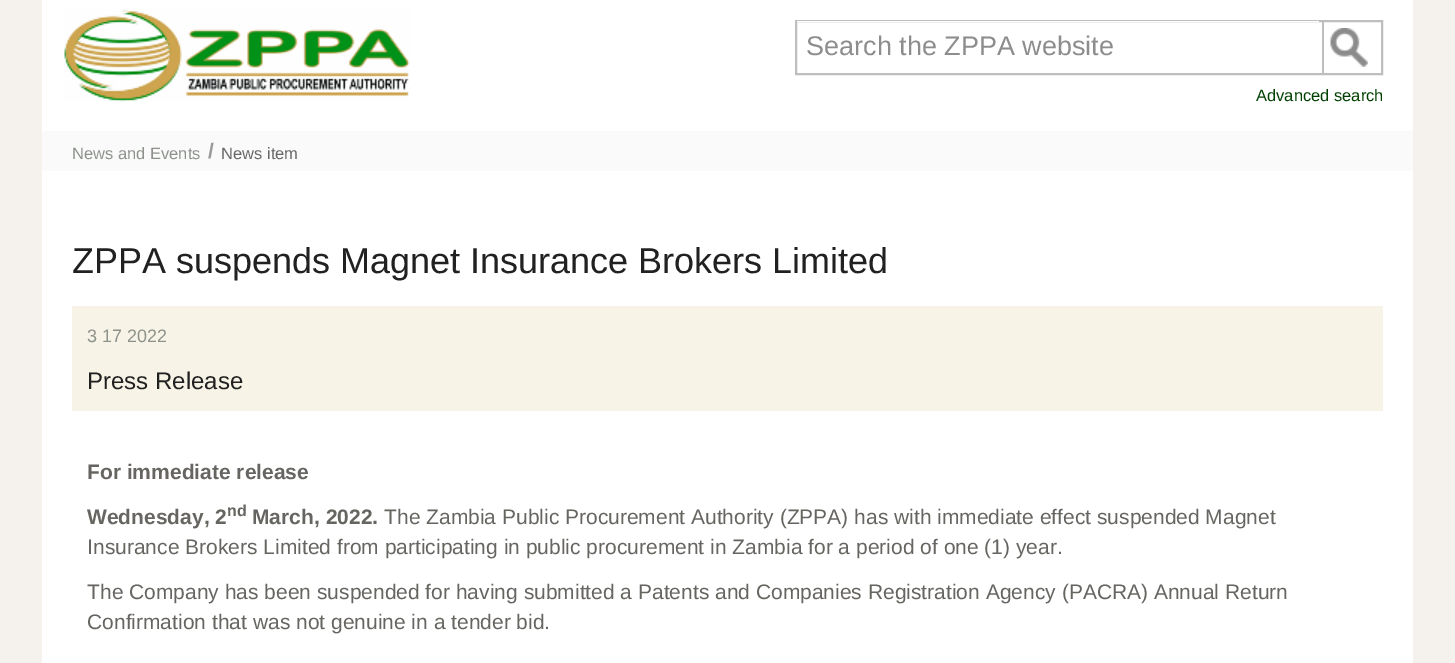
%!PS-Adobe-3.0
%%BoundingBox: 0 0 1455 663
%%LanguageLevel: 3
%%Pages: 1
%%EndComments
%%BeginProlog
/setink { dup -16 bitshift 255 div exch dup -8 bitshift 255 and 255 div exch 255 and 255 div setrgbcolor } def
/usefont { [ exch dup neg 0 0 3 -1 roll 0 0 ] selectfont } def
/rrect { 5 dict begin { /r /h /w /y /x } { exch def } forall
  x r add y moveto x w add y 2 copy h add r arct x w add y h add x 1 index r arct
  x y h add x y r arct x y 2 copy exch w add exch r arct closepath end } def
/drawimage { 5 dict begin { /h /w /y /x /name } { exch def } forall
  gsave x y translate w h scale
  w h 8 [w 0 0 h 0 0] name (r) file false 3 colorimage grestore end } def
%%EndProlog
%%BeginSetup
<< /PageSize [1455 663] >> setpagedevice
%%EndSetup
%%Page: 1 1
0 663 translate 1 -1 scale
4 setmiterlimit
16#F5F1EC setink
0 0 1455 663 rectfill
16#FFFFFF setink
42 0 1371 663 rectfill
(img1.raw) 64 9 346 93 drawimage
16#BEBEBE setink
2 setlinewidth
796 21 586 53 rectstroke
16#FFFFFF setink
797 21 522 1 rectfill
/LiberationSans-Regular 27 usefont
16#8D8D8D setink
806 55 moveto (Search the ZPPA website) show
(img2.raw) 1330 28 38 39 drawimage
16#BEBEBE setink
1322 21 2 53 rectfill
/LiberationSans-Regular 16.5 usefont
16#004000 setink
1256 101 moveto (Advanced search) show
16#FAFAFA setink
42 131 1371 40 3 rrect fill
16#8D938C setink
72 159 moveto (News and Events) show
/LiberationSans-Bold 21 usefont
16#999999 setink
208 158 moveto (/) show
/LiberationSans-Regular 16.5 usefont
16#676767 setink
221 159 moveto (News item) show
/LiberationSans-Regular 36 usefont
16#212121 setink
72 273 moveto (ZPPA suspends Magnet Insurance Brokers Limited) show
16#F7F3E6 setink
72 306 1311 105 rectfill
/LiberationSans-Regular 18 usefont
16#8D938C setink
87 342 moveto (3 17 2022) show
/LiberationSans-Regular 24 usefont
16#212121 setink
87 389 moveto (Press Release) show
/LiberationSans-Bold 21 usefont
16#666561 setink
87 479 moveto (For immediate release) show
87 524 moveto (Wednesday, 2) show
/LiberationSans-Bold 16 usefont
227 516 moveto (nd) show
/LiberationSans-Bold 21 usefont
252 524 moveto (March, 2022.) show
/LiberationSans-Regular 21 usefont
[
    [(The Zambia Public Procurement Authority \(ZPPA\) has with immediate effect suspended Magnet) 384 524]
    [(Insurance Brokers Limited from participating in public procurement in Zambia for a period of one \(1\) year.) 87 554]
    [(The Company has been suspended for having submitted a Patents and Companies Registration Agency \(PACRA\) Annual Return) 87 599]
    [(Confirmation that was not genuine in a tender bid.) 87 629]
] { aload pop moveto show } forall
showpage
%%EOF
